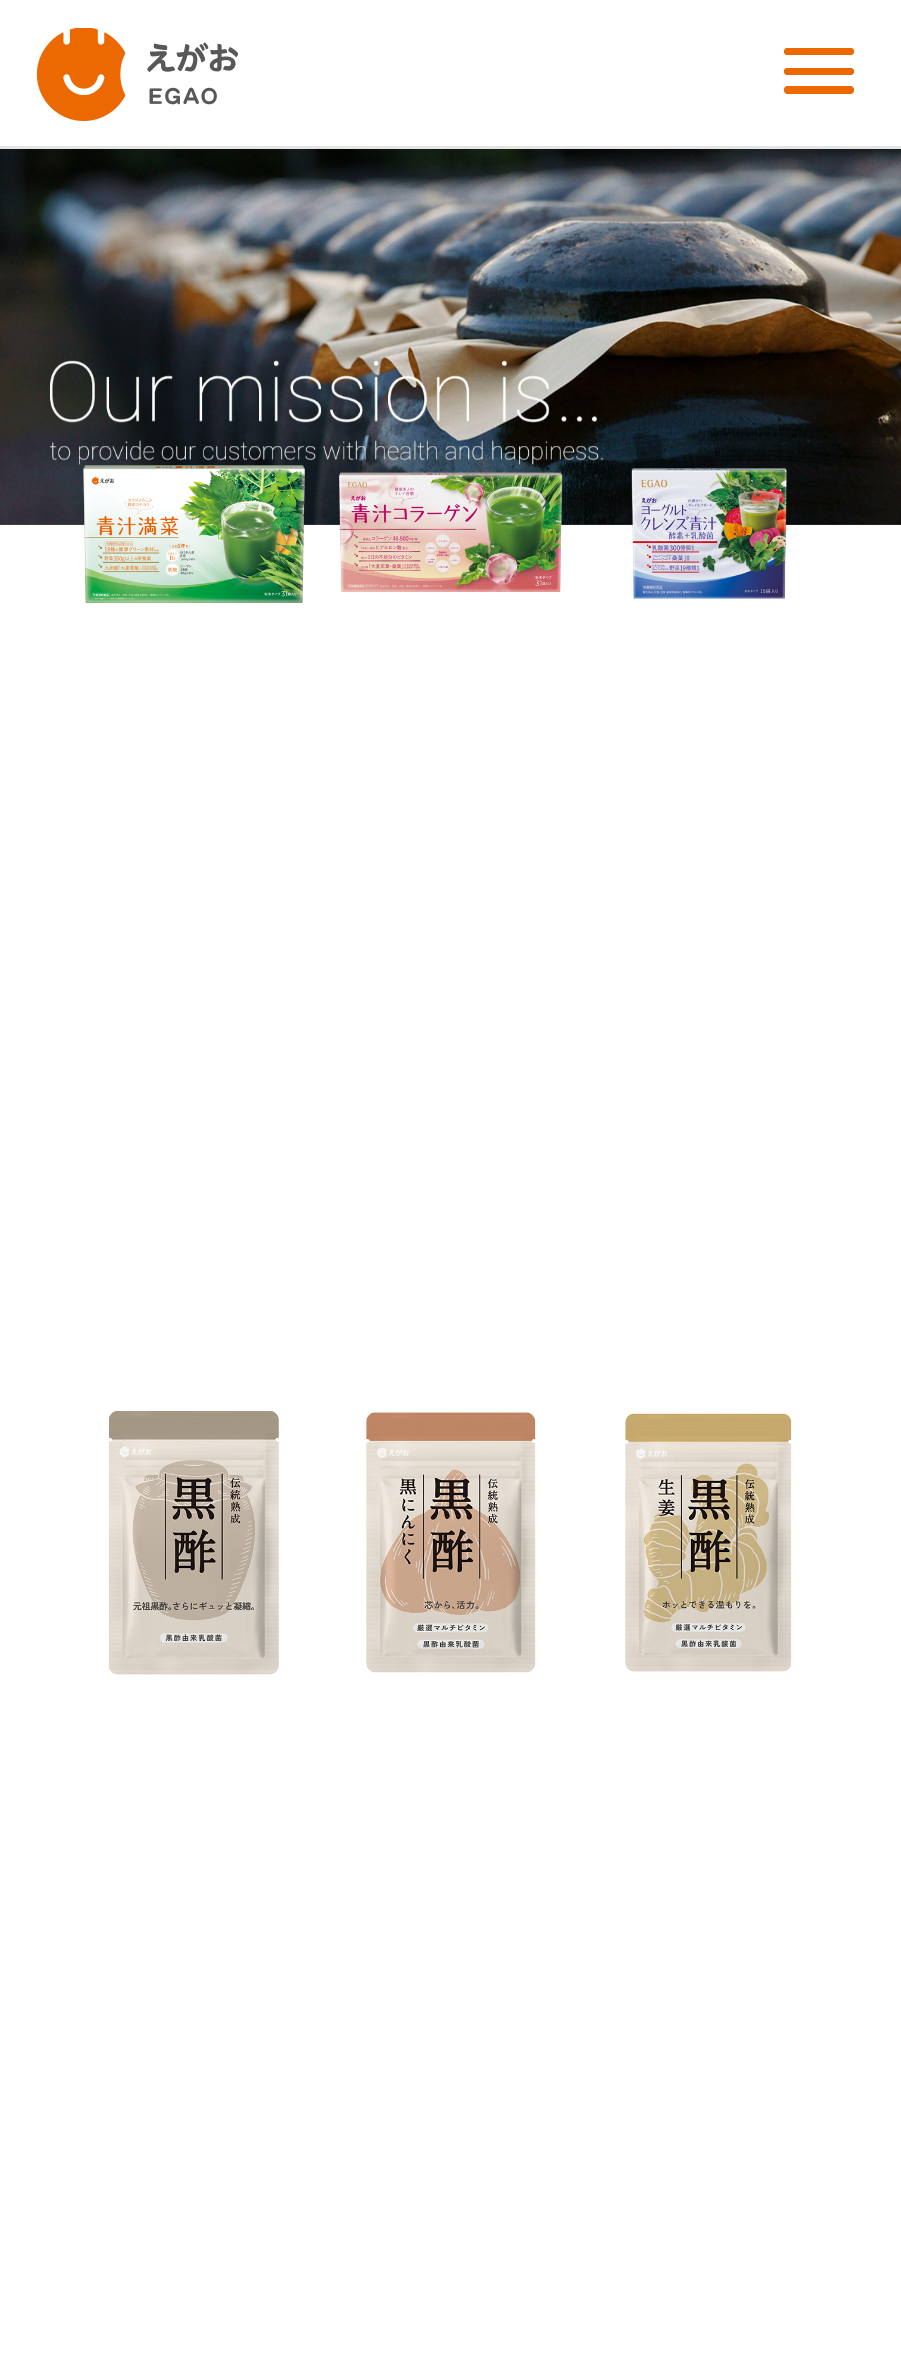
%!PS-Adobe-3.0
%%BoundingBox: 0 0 901 2365
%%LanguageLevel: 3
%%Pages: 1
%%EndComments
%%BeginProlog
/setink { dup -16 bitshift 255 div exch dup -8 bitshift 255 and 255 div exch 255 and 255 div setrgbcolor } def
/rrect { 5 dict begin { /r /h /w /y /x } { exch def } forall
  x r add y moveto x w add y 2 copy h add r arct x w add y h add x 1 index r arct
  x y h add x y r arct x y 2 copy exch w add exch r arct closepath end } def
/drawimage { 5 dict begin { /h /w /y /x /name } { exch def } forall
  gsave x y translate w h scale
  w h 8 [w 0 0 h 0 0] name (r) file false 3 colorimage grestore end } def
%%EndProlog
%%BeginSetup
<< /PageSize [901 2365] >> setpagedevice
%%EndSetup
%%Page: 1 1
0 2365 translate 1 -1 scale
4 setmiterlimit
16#FFFFFF setink
0 0 901 2365 rectfill
16#E5E5E5 setink
0 146 901 3 rectfill
(img1.raw) 36 28 202 93 drawimage
(img2.raw) 0 149 901 376 drawimage
(img3.raw) 83 465 222 138 drawimage
(img4.raw) 339 472 224 120 drawimage
(img5.raw) 631 468 156 131 drawimage
(img6.raw) 109 1411 170 264 drawimage
(img7.raw) 366 1412 170 261 drawimage
(img8.raw) 625 1413 167 259 drawimage
16#EC6800 setink
784 68 70 7 3.5 rrect fill
784 48 70 7 3.5 rrect fill
784 86 70 8 4 rrect fill
showpage
%%EOF
